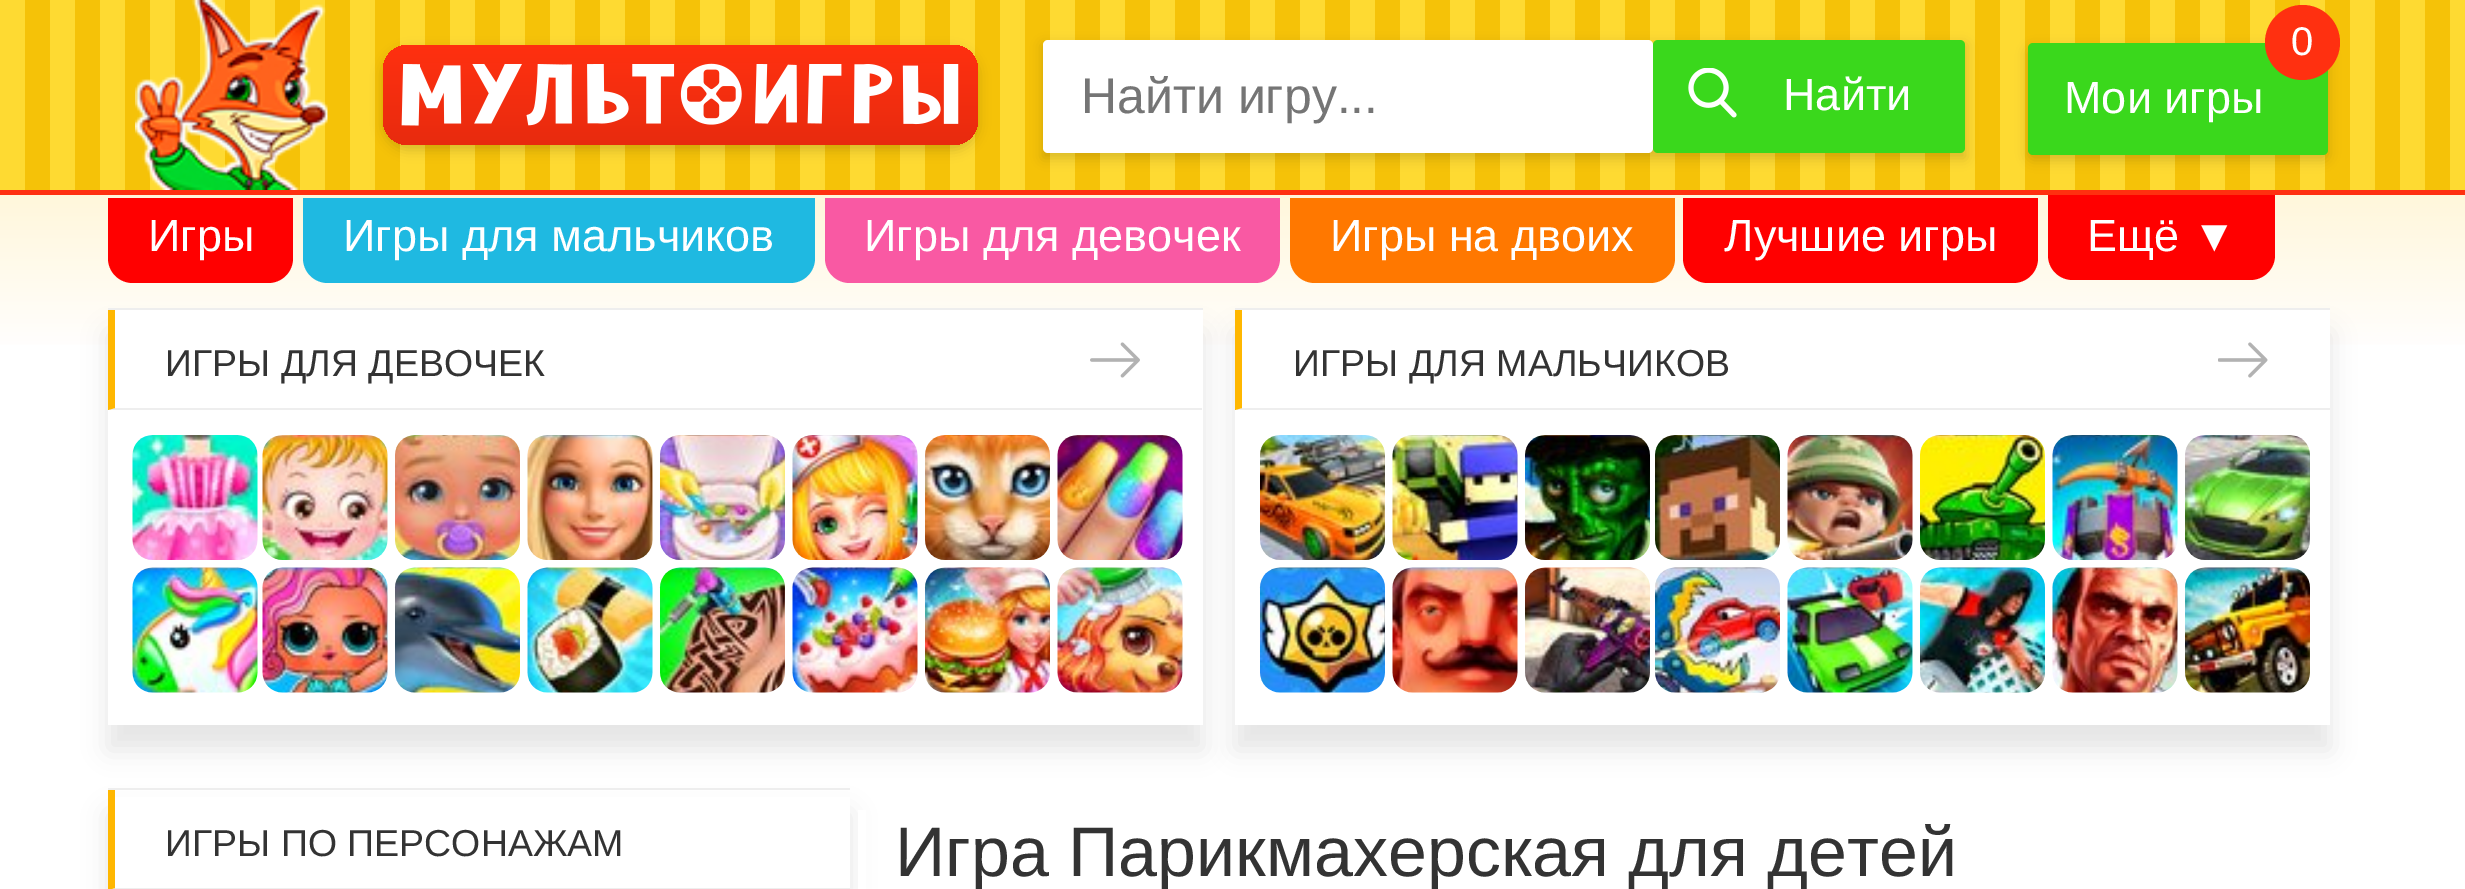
%!PS-Adobe-3.0
%%BoundingBox: 0 0 2465 889
%%LanguageLevel: 3
%%Pages: 1
%%EndComments
%%BeginProlog
/setink { dup -16 bitshift 255 div exch dup -8 bitshift 255 and 255 div exch 255 and 255 div setrgbcolor } def
/usefont { [ exch dup neg 0 0 3 -1 roll 0 0 ] selectfont } def
/setalpha { dup .setfillconstantalpha .setstrokeconstantalpha } def
/disc { newpath 0 360 arc closepath } def
/rrect { 5 dict begin { /r /h /w /y /x } { exch def } forall
  x r add y moveto x w add y 2 copy h add r arct x w add y h add x 1 index r arct
  x y h add x y r arct x y 2 copy exch w add exch r arct closepath end } def
/softshadow { 12 dict begin { /a /b /q /h /w /y /x } { exch def } forall gsave /was 0 def
  9 -2 -9 { dup b mul 4 div /e exch def 1 sub .425 mul 2.718 exch exp 1 add a .99 .min exch div /now exch def
    1 1 now sub 1 was sub div sub setalpha /was now def
    w h .min e 2 mul add 0 gt { x e sub y e sub w e 2 mul add h e 2 mul add
      q e add b .6 mul add w h .min 2 div e add .min 0 .max rrect fill } if } for grestore end } def
/drawimage { 5 dict begin { /h /w /y /x /name } { exch def } forall
  gsave x y translate w h scale
  w h 8 [w 0 0 h 0 0] name (r) file false 3 colorimage grestore end } def
%%EndProlog
%%BeginSetup
<< /PageSize [2465 889] /PageUsesTransparency true >> setpagedevice
%%EndSetup
%%Page: 1 1
0 .pushpdf14devicefilter
0 889 translate 1 -1 scale
4 setmiterlimit
16#FFFFFF setink
0 0 2465 889 rectfill
gsave 0 195 moveto 2465 195 lineto 2465 345 lineto 0 345 lineto closepath clip newpath
<< /ShadingType 2 /ColorSpace /DeviceRGB /Coords [1233 0 1233 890] /Extend [true true] /Function << /FunctionType 3 /Domain [0 1] /Functions [<< /FunctionType 2 /Domain [0 1] /C0 [1 0.933 0.69] /C1 [1 1 1] /N 1 >> << /FunctionType 2 /Domain [0 1] /C0 [1 1 1] /C1 [1 1 1] /N 1 >>] /Bounds [0.4] /Encode [0 1 0 1] >> >> shfill grestore
(img1.raw) 0 0 2465 190 drawimage
16#FF3010 setink
0 190 2465 5 rectfill
(img2.raw) 135 0 193 190 drawimage
16#000000 setink
383 50 595 100 25 6 0.15 softshadow
gsave 383 45 595 100 25 rrect clip newpath
<< /ShadingType 2 /ColorSpace /DeviceRGB /Coords [680 45 680 145] /Extend [true true] /Function << /FunctionType 2 /Domain [0 1] /C0 [1 0.188 0.063] /C1 [0.91 0.169 0.055] /N 1 >> >> shfill grestore
(img3.raw) 401 63 558 63 drawimage
1043 45 922 113 0 6 0.15 softshadow
16#FFFFFF setink
1043 40 610 113 5 rrect fill
/LiberationSans-Regular 50 usefont
16#757575 setink
1081 113 moveto (Найти игру...) show
16#3AD81C setink
1653 40 312 113 5 rrect fill
(img4.raw) 1688 68 49 50 drawimage
/LiberationSans-Regular 45 usefont
16#FFFFFF setink
1783 110 moveto (Найти) show
16#000000 setink
2028 48 300 112 5 6 0.15 softshadow
16#3AD81C setink
2028 43 300 112 5 rrect fill
16#FF3010 setink
2302.5 42.5 37.5 disc fill
/LiberationSans-Regular 40 usefont
16#FFFFFF setink
2291 55 moveto (0) show
/LiberationSans-Regular 45 usefont
2064 113 moveto (Мои игры) show
16#FF0000 setink
108 198 moveto 293 198 lineto 293 258 lineto 293 272 282 283 268 283 curveto 133 283 lineto 119 283 108 272 108 258 curveto closepath fill
16#FFFFFF setink
148 251 moveto (Игры) show
16#1FB9E1 setink
303 198 moveto 815 198 lineto 815 258 lineto 815 272 804 283 790 283 curveto 328 283 lineto 314 283 303 272 303 258 curveto closepath fill
16#FFFFFF setink
343 251 moveto (Игры для мальчиков) show
16#F959A3 setink
825 198 moveto 1280 198 lineto 1280 258 lineto 1280 272 1269 283 1255 283 curveto 850 283 lineto 836 283 825 272 825 258 curveto closepath fill
16#FFFFFF setink
864 251 moveto (Игры для девочек) show
16#FF7800 setink
1290 198 moveto 1675 198 lineto 1675 258 lineto 1675 272 1664 283 1650 283 curveto 1315 283 lineto 1301 283 1290 272 1290 258 curveto closepath fill
16#FFFFFF setink
1330 251 moveto (Игры на двоих) show
16#FF0000 setink
1683 198 moveto 2038 198 lineto 2038 258 lineto 2038 272 2027 283 2013 283 curveto 1708 283 lineto 1694 283 1683 272 1683 258 curveto closepath fill
16#FFFFFF setink
1724 251 moveto (Лучшие игры) show
16#FF0000 setink
2048 195 moveto 2275 195 lineto 2275 255 lineto 2275 269 2264 280 2250 280 curveto 2073 280 lineto 2059 280 2048 269 2048 255 curveto closepath fill
16#FFFFFF setink
2087 251 moveto (Ещё ▼) show
16#000000 setink
108 813 742 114 0 12.5 0.1 softshadow
16#EEEEEE setink
108 788 742 2 rectfill
16#000000 setink
108 333 1095 417 0 12.5 0.1 softshadow
16#FFFFFF setink
108 410 1095 315 rectfill
16#EEEEEE setink
108 308 1095 2 rectfill
16#000000 setink
1235 333 1095 417 0 12.5 0.1 softshadow
16#FFFFFF setink
108 310 1095 100 rectfill
16#EEEEEE setink
1202 410 moveto 108 410 lineto 115 408 lineto 1202 408 lineto closepath fill
16#FFB700 setink
108 410 moveto 108 310 lineto 115 310 lineto 115 408 lineto closepath fill
/LiberationSans-Regular 37.5 usefont
16#333333 setink
165 376 moveto (ИГРЫ ДЛЯ ДЕВОЧЕК) show
(img5.raw) 1090 342 50 36 drawimage
(img6.raw) 132 435 126 125 drawimage
(img7.raw) 262 435 126 125 drawimage
(img8.raw) 395 435 125 125 drawimage
(img9.raw) 527 435 126 125 drawimage
(img10.raw) 660 435 125 125 drawimage
(img11.raw) 792 435 126 125 drawimage
(img12.raw) 925 435 125 125 drawimage
(img13.raw) 1057 435 126 125 drawimage
(img14.raw) 132 567 126 126 drawimage
(img15.raw) 262 567 126 126 drawimage
(img16.raw) 394 567 126 126 drawimage
(img17.raw) 527 567 126 126 drawimage
(img18.raw) 659 567 126 126 drawimage
(img19.raw) 792 567 126 126 drawimage
(img20.raw) 924 567 126 126 drawimage
(img21.raw) 1057 567 126 126 drawimage
16#FFFFFF setink
1235 310 1095 415 rectfill
16#EEEEEE setink
1235 308 1095 2 rectfill
2330 410 moveto 1235 410 lineto 1242 408 lineto 2330 408 lineto closepath fill
16#FFB700 setink
1235 410 moveto 1235 310 lineto 1242 310 lineto 1242 408 lineto closepath fill
16#333333 setink
1293 376 moveto (ИГРЫ ДЛЯ МАЛЬЧИКОВ) show
(img22.raw) 2218 342 50 36 drawimage
(img23.raw) 1260 435 125 125 drawimage
(img24.raw) 1392 435 126 125 drawimage
(img25.raw) 1525 435 125 125 drawimage
(img26.raw) 1655 435 125 125 drawimage
(img27.raw) 1787 435 126 125 drawimage
(img28.raw) 1920 435 125 125 drawimage
(img29.raw) 2052 435 126 125 drawimage
(img30.raw) 2185 435 125 125 drawimage
(img31.raw) 1259 567 126 126 drawimage
(img32.raw) 1392 567 126 126 drawimage
(img33.raw) 1525 567 125 126 drawimage
(img34.raw) 1655 567 125 126 drawimage
(img35.raw) 1787 567 126 126 drawimage
(img36.raw) 1920 567 125 126 drawimage
(img37.raw) 2052 567 126 126 drawimage
(img38.raw) 2184 567 126 126 drawimage
16#FFFFFF setink
111 797 739 92 rectfill
16#EEEEEE setink
850 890 moveto 108 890 lineto 115 888 lineto 850 888 lineto closepath fill
16#FFB700 setink
108 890 moveto 108 790 lineto 115 790 lineto 115 888 lineto closepath fill
16#333333 setink
165 856 moveto (ИГРЫ ПО ПЕРСОНАЖАМ) show
16#FFFFFF setink
858 810 8 79 rectfill
/LiberationSans-Regular 70 usefont
16#333333 setink
895 876 moveto (Игра Парикмахерская для детей) show
.poppdf14devicefilter showpage
%%EOF
